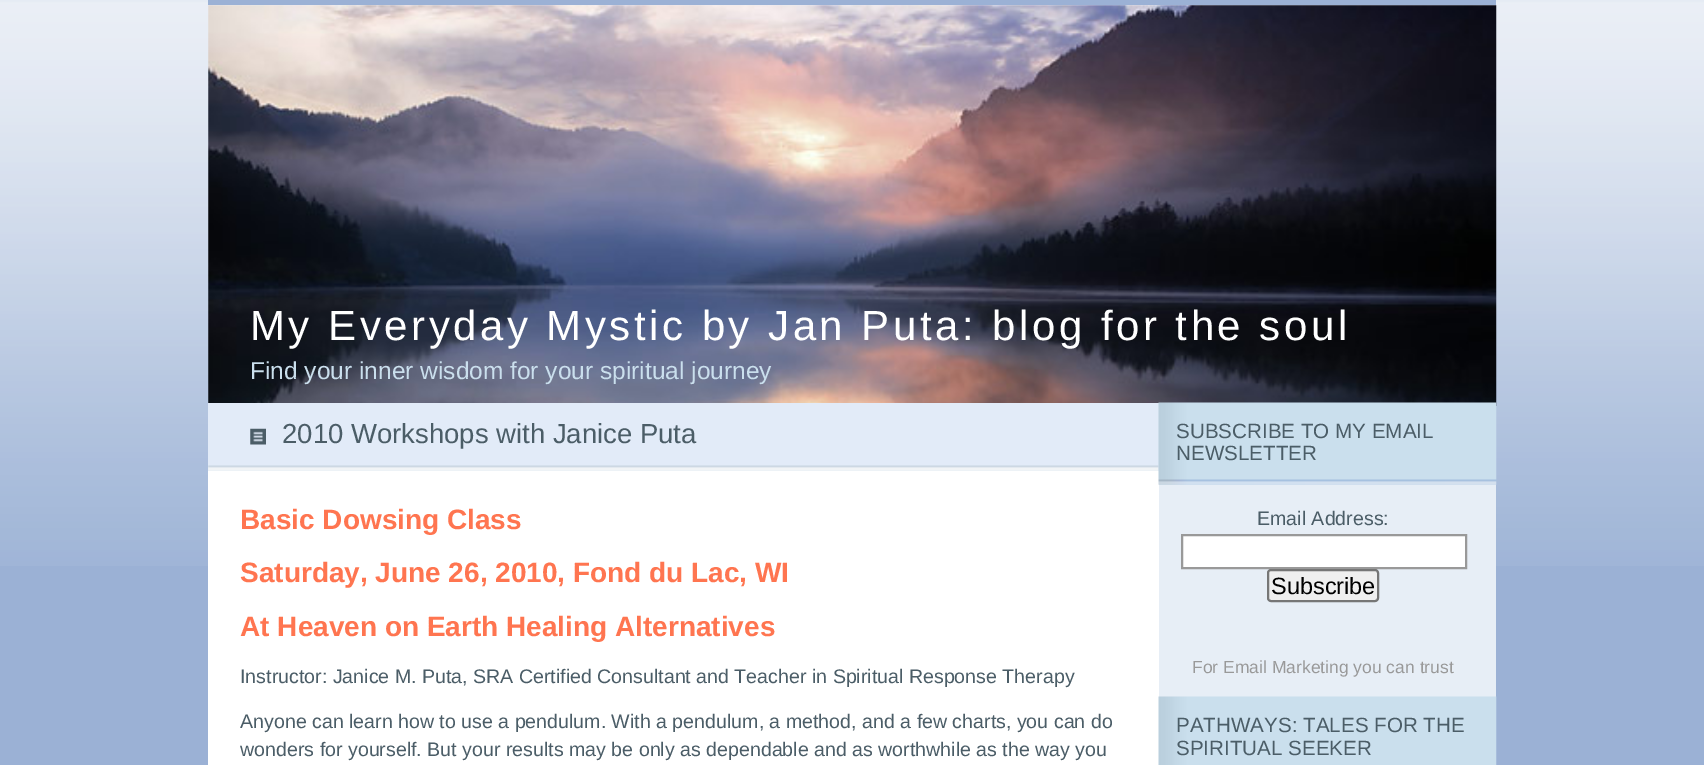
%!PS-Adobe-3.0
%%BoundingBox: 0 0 1704 765
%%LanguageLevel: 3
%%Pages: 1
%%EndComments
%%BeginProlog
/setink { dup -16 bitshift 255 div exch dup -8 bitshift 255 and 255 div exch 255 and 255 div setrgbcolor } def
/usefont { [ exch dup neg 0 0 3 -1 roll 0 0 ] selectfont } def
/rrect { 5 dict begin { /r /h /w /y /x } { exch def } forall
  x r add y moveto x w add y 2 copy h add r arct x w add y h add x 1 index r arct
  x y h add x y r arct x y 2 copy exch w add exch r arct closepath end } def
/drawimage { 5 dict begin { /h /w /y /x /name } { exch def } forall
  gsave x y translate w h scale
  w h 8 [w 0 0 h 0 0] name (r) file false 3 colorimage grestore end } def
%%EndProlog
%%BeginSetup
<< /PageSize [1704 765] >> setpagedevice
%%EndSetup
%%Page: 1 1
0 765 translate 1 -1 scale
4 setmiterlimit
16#9BB1D5 setink
0 0 1704 765 rectfill
(img1.raw) 0 0 1704 566 drawimage
(img2.raw) 208 5 1289 401 drawimage
208 0 1288 5 rectfill
/LiberationSans-Regular 42 usefont
16#FFFFFF setink
250 340 moveto 3.5 0 (My Everyday Mystic by Jan Puta: blog for the soul) ashow
/LiberationSans-Regular 24.5 usefont
16#CADFED setink
250 379 moveto (Find your inner wisdom for your spiritual journey) show
16#FFFFFF setink
208 471 951 294 rectfill
16#E2EBF8 setink
208 403 951 68 rectfill
(img3.raw) 208 465 951 6 drawimage
(img4.raw) 250 428 16 17 drawimage
/LiberationSans-Regular 27.5 usefont
16#4B5D67 setink
282 443 moveto (2010 Workshops with Janice Puta) show
/LiberationSans-Bold 28 usefont
16#FF7550 setink
[
    [(Basic Dowsing Class) 240 529]
    [(Saturday, June 26, 2010, Fond du Lac, WI) 240 582]
    [(At Heaven on Earth Healing Alternatives) 240 636]
] { aload pop moveto show } forall
/LiberationSans-Regular 19.6 usefont
16#4B5D67 setink
[
    [(Instructor: Janice M. Puta, SRA Certified Consultant and Teacher in Spiritual Response Therapy) 240 683]
    [(Anyone can learn how to use a pendulum. With a pendulum, a method, and a few charts, you can do) 240 728]
    [(wonders for yourself. But your results may be only as dependable and as worthwhile as the way you) 240 756]
] { aload pop moveto show } forall
16#E7EEF6 setink
1159 484 337 213 rectfill
(img5.raw) 1158 402 339 83 drawimage
/LiberationSans-Regular 20.6 usefont
16#4B5D67 setink
1176 438 moveto (SUBSCRIBE TO MY EMAIL) show
1176 460 moveto (NEWSLETTER) show
/LiberationSans-Regular 19.6 usefont
1257 525 moveto (Email Address:) show
16#FFFFFF setink
1182 535 moveto 1466 535 lineto 1466 568 lineto 1182 568 lineto closepath gsave fill grestore
16#999999 setink
2 setlinewidth
stroke
16#EFEFEF setink
1268 570 110 31 3 rrect gsave fill grestore
16#767676 setink
stroke
/LiberationSans-Regular 23.5 usefont
16#000000 setink
1271 594 moveto (Subscribe) show
/LiberationSans-Regular 17.5 usefont
16#999999 setink
1192 673 moveto (For Email Marketing you can trust) show
(img6.raw) 1158 696 339 69 drawimage
/LiberationSans-Regular 20.6 usefont
16#4B5D67 setink
1176 732 moveto (PATHWAYS: TALES FOR THE) show
1176 755 moveto (SPIRITUAL SEEKER) show
showpage
%%EOF
